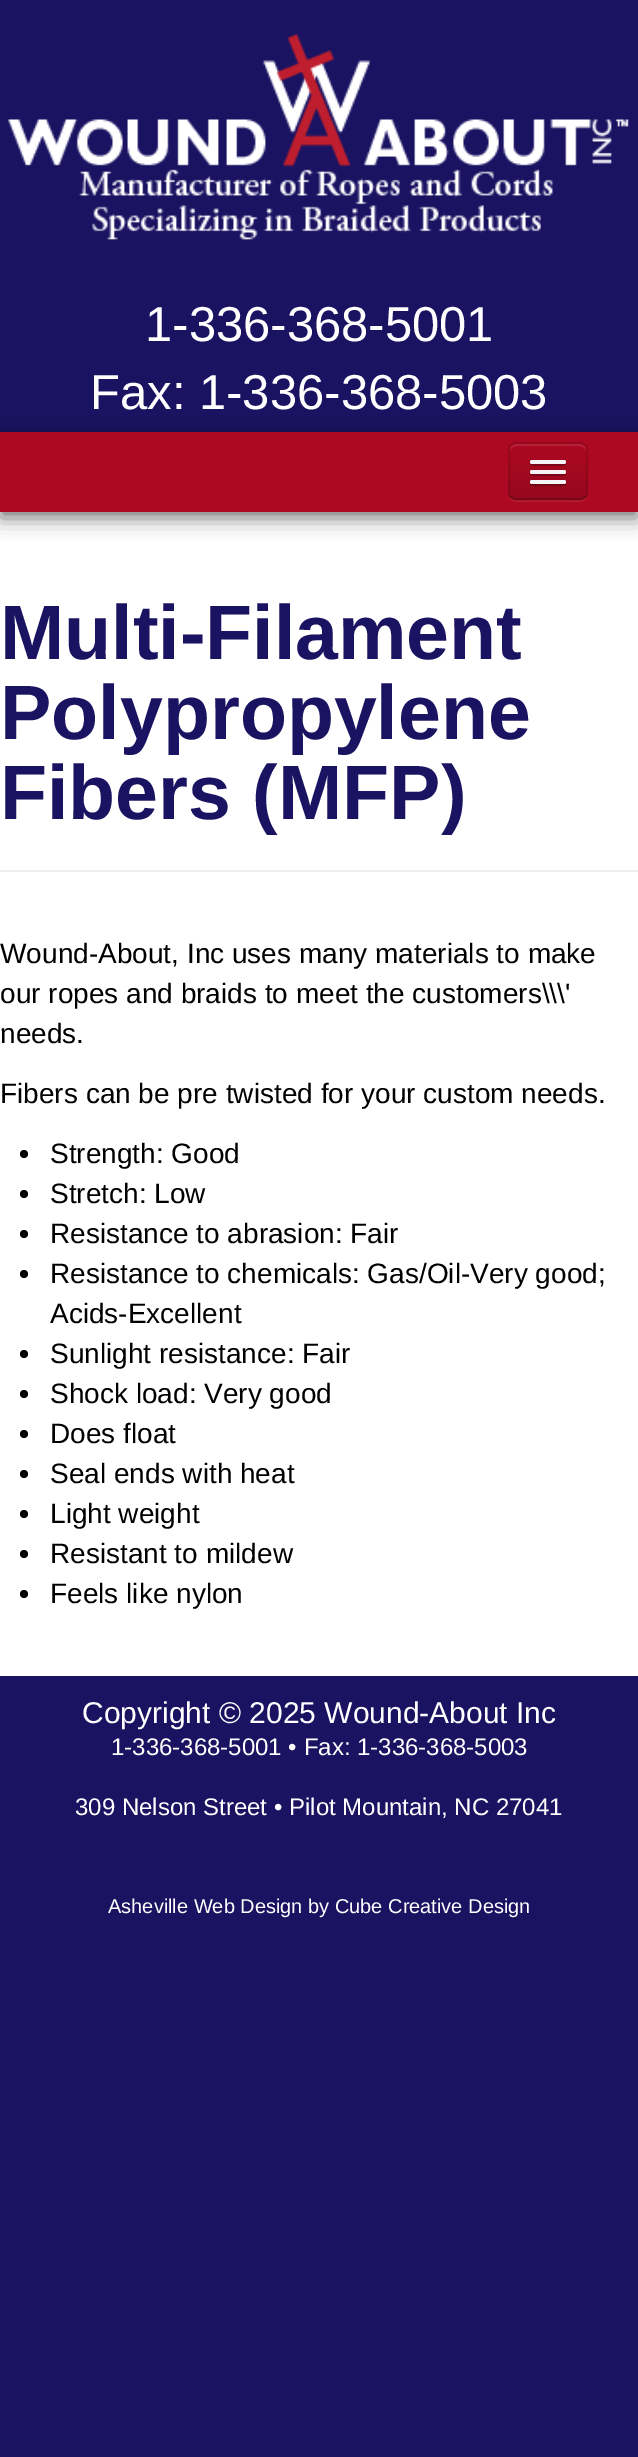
%!PS-Adobe-3.0
%%BoundingBox: 0 0 638 2457
%%LanguageLevel: 3
%%Pages: 1
%%EndComments
%%BeginProlog
/setink { dup -16 bitshift 255 div exch dup -8 bitshift 255 and 255 div exch 255 and 255 div setrgbcolor } def
/usefont { [ exch dup neg 0 0 3 -1 roll 0 0 ] selectfont } def
/setalpha { dup .setfillconstantalpha .setstrokeconstantalpha } def
/disc { newpath 0 360 arc closepath } def
/rrect { 5 dict begin { /r /h /w /y /x } { exch def } forall
  x r add y moveto x w add y 2 copy h add r arct x w add y h add x 1 index r arct
  x y h add x y r arct x y 2 copy exch w add exch r arct closepath end } def
/softshadow { 12 dict begin { /a /b /q /h /w /y /x } { exch def } forall gsave /was 0 def
  9 -2 -9 { dup b mul 4 div /e exch def 1 sub .425 mul 2.718 exch exp 1 add a .99 .min exch div /now exch def
    1 1 now sub 1 was sub div sub setalpha /was now def
    w h .min e 2 mul add 0 gt { x e sub y e sub w e 2 mul add h e 2 mul add
      q e add b .6 mul add w h .min 2 div e add .min 0 .max rrect fill } if } for grestore end } def
/drawimage { 5 dict begin { /h /w /y /x /name } { exch def } forall
  gsave x y translate w h scale
  w h 8 [w 0 0 h 0 0] name (r) file false 3 colorimage grestore end } def
%%EndProlog
%%BeginSetup
<< /PageSize [638 2457] /PageUsesTransparency true >> setpagedevice
%%EndSetup
%%Page: 1 1
0 .pushpdf14devicefilter
0 2457 translate 1 -1 scale
4 setmiterlimit
16#1A1362 setink
0 0 638 2457 rectfill
(img1.raw) 8 33 621 207 drawimage
/LiberationSans-Regular 49 usefont
16#FFFFFF setink
145 341 moveto (1-336-368-5001) show
0 512 638 1164 rectfill
16#000000 setink
0 438 638 80 0 10 0.5 softshadow
16#FFFFFF setink
90 409 moveto (Fax: 1-336-368-5003) show
16#AE0922 setink
0 432 638 80 rectfill
16#000000 setink
0 434 638 80 8 4 0.07 softshadow
16#AE0922 setink
0 432 638 80 8 rrect fill
16#B41B33 setink
508 492 moveto 508 504 517 502 527 502 curveto 569 502 lineto 579 502 588 504 588 492 curveto 588 496 584 500 580 500 curveto 516 500 lineto 512 500 508 496 508 492 curveto closepath fill
16#A40820 setink
508 442 80 58 8 rrect fill
gsave
508 442 80 58 8 rrect clip newpath
gsave 508 444 moveto 588 444 lineto 588 498 lineto 508 498 lineto closepath clip newpath
<< /ShadingType 2 /ColorSpace /DeviceRGB /Coords [548 444 548 498] /Extend [true true] /Function << /FunctionType 2 /Domain [0 1] /C0 [0.682 0.035 0.133] /C1 [0.588 0.031 0.114] /N 1 >> >> shfill grestore
grestore
16#B62238 setink
516 446 moveto 580 446 lineto 583 446 586 449 586 452 curveto 586 442 578 444 569 444 curveto 527 444 lineto 518 444 510 442 510 452 curveto 510 449 513 446 516 446 curveto closepath fill
0.25 setalpha
16#000000 setink
2 setlinewidth
585 497 moveto 583.5 498.5 582 499 580 499 curveto 516 499 lineto 514 499 512.5 498.5 511 497 curveto stroke
0.1 setalpha
511 497 moveto 509.5 495.5 509 494 509 492 curveto 509 450 lineto 509 448 509.5 446.5 511 445 curveto 512.5 443.5 514 443 516 443 curveto 580 443 lineto 582 443 583.5 443.5 585 445 curveto 586.5 446.5 587 448 587 450 curveto 587 492 lineto 587 494 586.5 495.5 585 497 curveto stroke
1 setalpha
16#7B0718 setink
530.5 463 moveto 528 467 537 466 537.5 466 curveto 558.5 466 lineto 559 466 568 467 565.5 463 curveto 565.5 463.5 564.5 464 564 464 curveto 532 464 lineto 531.5 464 530.5 463.5 530.5 463 curveto closepath fill
16#F5F5F5 setink
530 460 36 4 2 rrect fill
16#780617 setink
530.5 473 moveto 528 477 537 476 537.5 476 curveto 558.5 476 lineto 559 476 568 477 565.5 473 curveto 565.5 473.5 564.5 474 564 474 curveto 532 474 lineto 531.5 474 530.5 473.5 530.5 473 curveto closepath fill
16#F5F5F5 setink
530 470 36 4 2 rrect fill
16#750617 setink
530.5 483 moveto 528 487 537 486 537.5 486 curveto 558.5 486 lineto 559 486 568 487 565.5 483 curveto 565.5 483.5 564.5 484 564 484 curveto 532 484 lineto 531.5 484 530.5 483.5 530.5 483 curveto closepath fill
16#F5F5F5 setink
530 480 36 4 2 rrect fill
16#EEEEEE setink
0 870 638 2 rectfill
/LiberationSans-Bold 77 usefont
16#1A1362 setink
[
    [(Multi-Filament) 0 659]
    [(Polypropylene) 0 739]
    [(Fibers \(MFP\)) 0 819]
] { aload pop moveto show } forall
/LiberationSans-Regular 28 usefont
16#000000 setink
[
    [(Wound-About, Inc uses many materials to make) 0 963]
    [(our ropes and braids to meet the customers\\\\\\') 0 1003]
    [(needs.) 0 1043]
    [(Fibers can be pre twisted for your custom needs.) 0 1103]
] { aload pop moveto show } forall
24 1154 4 disc fill
50 1163 moveto (Strength: Good) show
24 1194 4 disc fill
50 1203 moveto (Stretch: Low) show
24 1234 4 disc fill
50 1243 moveto (Resistance to abrasion: Fair) show
24 1274 4 disc fill
50 1283 moveto (Resistance to chemicals: Gas/Oil-Very good;) show
50 1323 moveto (Acids-Excellent) show
24 1354 4 disc fill
50 1363 moveto (Sunlight resistance: Fair) show
24 1394 4 disc fill
50 1403 moveto (Shock load: Very good) show
24 1434 4 disc fill
50 1443 moveto (Does float) show
24 1474 4 disc fill
50 1483 moveto (Seal ends with heat) show
24 1514 4 disc fill
50 1523 moveto (Light weight) show
24 1554 4 disc fill
50 1563 moveto (Resistant to mildew) show
24 1594 4 disc fill
50 1603 moveto (Feels like nylon) show
/LiberationSans-Regular 30 usefont
16#FFFFFF setink
82 1723 moveto (Copyright © 2025 Wound-About Inc) show
/LiberationSans-Regular 24 usefont
111 1755 moveto (1-336-368-5001 • Fax: 1-336-368-5003) show
75 1815 moveto (309 Nelson Street • Pilot Mountain, NC 27041) show
/LiberationSans-Regular 20 usefont
108 1913 moveto (Asheville Web Design by Cube Creative Design) show
.poppdf14devicefilter showpage
%%EOF
